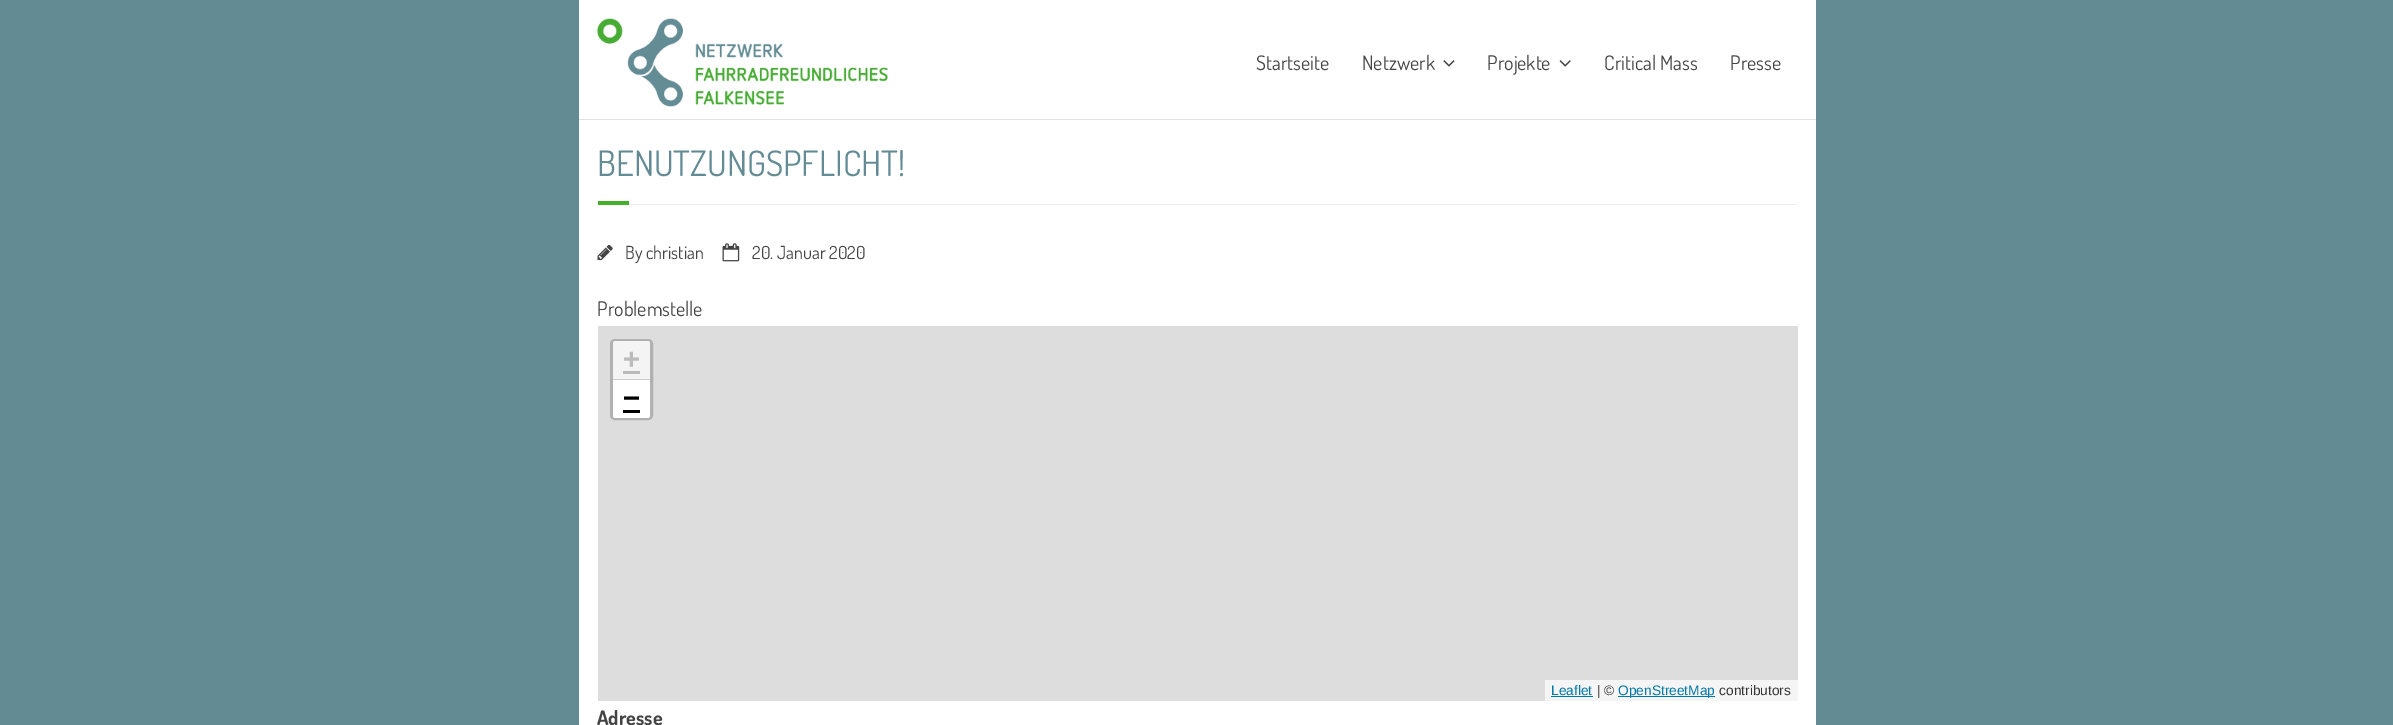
%!PS-Adobe-3.0
%%BoundingBox: 0 0 2393 725
%%LanguageLevel: 3
%%Pages: 1
%%EndComments
%%BeginProlog
/setink { dup -16 bitshift 255 div exch dup -8 bitshift 255 and 255 div exch 255 and 255 div setrgbcolor } def
/usefont { [ exch dup neg 0 0 3 -1 roll 0 0 ] selectfont } def
/rrect { 5 dict begin { /r /h /w /y /x } { exch def } forall
  x r add y moveto x w add y 2 copy h add r arct x w add y h add x 1 index r arct
  x y h add x y r arct x y 2 copy exch w add exch r arct closepath end } def
/drawimage { 5 dict begin { /h /w /y /x /name } { exch def } forall
  gsave x y translate w h scale
  w h 8 [w 0 0 h 0 0] name (r) file false 3 colorimage grestore end } def
%%EndProlog
%%BeginSetup
<< /PageSize [2393 725] >> setpagedevice
%%EndSetup
%%Page: 1 1
0 725 translate 1 -1 scale
4 setmiterlimit
16#628B94 setink
0 0 2393 725 rectfill
16#FFFFFF setink
579 0 1237 725 rectfill
16#E0E0E0 setink
579 119 1237 1 rectfill
(img1.raw) 597 18 291 89 drawimage
/Dosis-Regular 20 usefont
16#444444 setink
1256 70 moveto (Startseite) show
1362 70 moveto (Netzwerk) show
(img2.raw) 1443 60 12 7 drawimage
1487 70 moveto (Projekte) show
(img3.raw) 1559 60 12 7 drawimage
1604 70 moveto (Critical Mass) show
1730 70 moveto (Presse) show
/Dosis-Regular 35 usefont
16#628B94 setink
597 176 moveto (BENUTZUNGSPFLICHT!) show
16#43B02A setink
598 201 31 4 rectfill
16#EEEEEE setink
629 204 1169 1 rectfill
(img4.raw) 597 244 16 17 drawimage
/Dosis-Regular 18 usefont
16#444444 setink
625 259 moveto (By christian) show
(img5.raw) 722 243 18 19 drawimage
752 259 moveto (20. Januar 2020) show
/Dosis-Regular 20 usefont
597 316 moveto (Problemstelle) show
16#DDDDDD setink
598 326 1200 375 rectfill
16#B1B1B1 setink
3 setlinewidth
611.5 340.5 40 78 3.5 rrect stroke
16#F4F4F4 setink
615.5 341 moveto 647.5 341 lineto 649 341 650 342 650 343.5 curveto 650 380 lineto 613 380 lineto 613 343.5 lineto 613 342 614 341 615.5 341 curveto closepath fill
16#CCCCCC setink
613 379 37 1 rectfill
/DejaVuSansMono-Bold 28 usefont
16#BBBBBB setink
623 368 moveto (+) show
623 371 17 3 rectfill
16#FFFFFF setink
613 380 moveto 650 380 lineto 650 415.5 lineto 650 417 649 418 647.5 418 curveto 615.5 418 lineto 614 418 613 417 613 415.5 curveto closepath fill
16#000000 setink
623 407 moveto (−) show
623 410 17 3 rectfill
16#F5F5F5 setink
1545 680 253 21 rectfill
/LiberationSans-Regular 13.75 usefont
16#0078A8 setink
1551 695 moveto (Leaflet) show
1551 696 42 1 rectfill
16#333333 setink
1597 695 moveto (| ©) show
16#0078A8 setink
1618 696 97 1 rectfill
1618 695 moveto (OpenStreetMap) show
16#333333 setink
1719 695 moveto (contributors) show
/Dosis-Bold 20 usefont
16#444444 setink
597 725 moveto (Adresse) show
showpage
%%EOF
